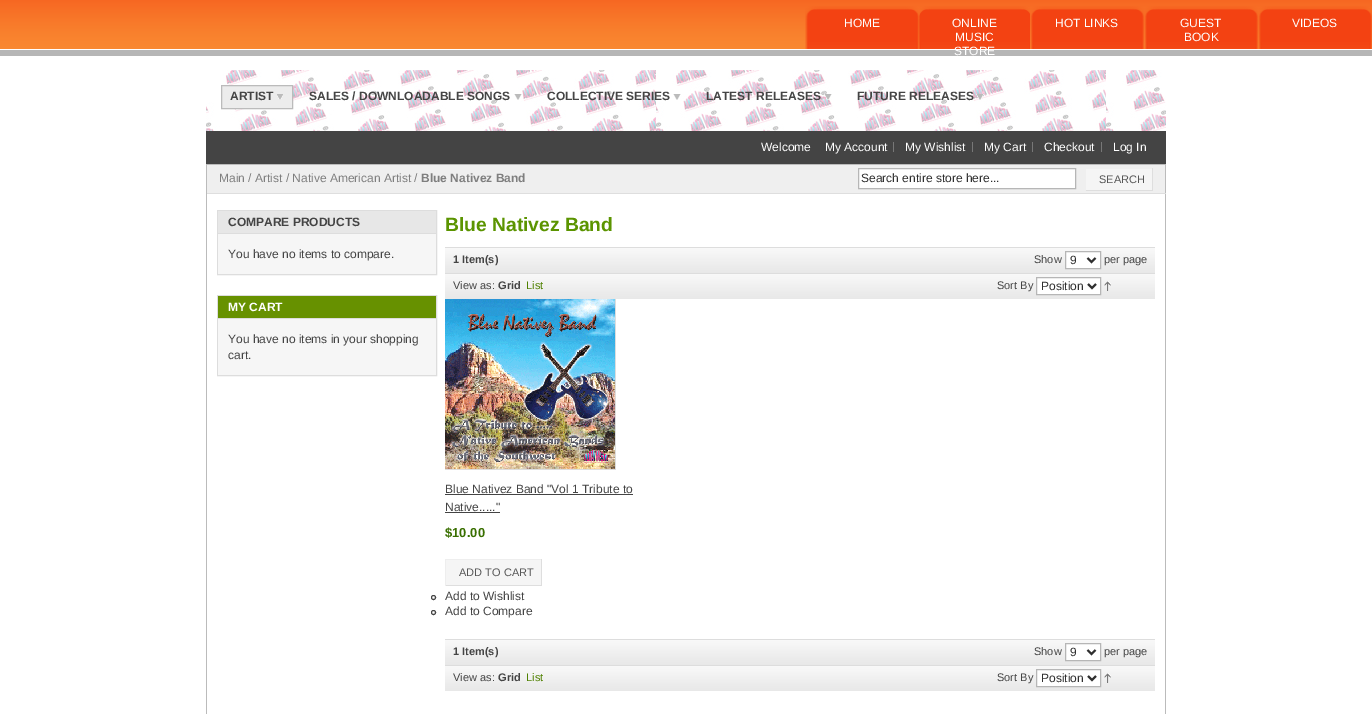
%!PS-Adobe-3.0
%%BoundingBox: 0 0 1372 714
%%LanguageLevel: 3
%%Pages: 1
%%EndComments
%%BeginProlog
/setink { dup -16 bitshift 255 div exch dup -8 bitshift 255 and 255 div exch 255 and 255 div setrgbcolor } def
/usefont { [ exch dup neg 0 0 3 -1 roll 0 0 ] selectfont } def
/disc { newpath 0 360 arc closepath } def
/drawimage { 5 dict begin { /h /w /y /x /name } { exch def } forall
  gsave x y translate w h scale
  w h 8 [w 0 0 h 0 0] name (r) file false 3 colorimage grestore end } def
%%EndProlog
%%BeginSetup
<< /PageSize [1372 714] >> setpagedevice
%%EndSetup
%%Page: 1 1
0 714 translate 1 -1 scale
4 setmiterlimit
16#FFFFFF setink
0 0 1372 714 rectfill
(img1.raw) 0 0 1372 49 drawimage
16#B6B6B6 setink
0 50 1372 6 rectfill
(img2.raw) 805 6 114 43 drawimage
/LiberationSans-Regular 12 usefont
16#FFFFFF setink
844 27 moveto (HOME) show
(img3.raw) 919 6 111 43 drawimage
[
    [(ONLINE) 952 27]
    [(MUSIC) 955 41]
    [(STORE) 954 55]
] { aload pop moveto show } forall
(img2.raw) 1030 6 114 43 drawimage
1055 27 moveto (HOT LINKS) show
(img2.raw) 1144 6 114 43 drawimage
1180 27 moveto (GUEST) show
1184 41 moveto (BOOK) show
(img2.raw) 1258 6 114 43 drawimage
1292 27 moveto (VIDEOS) show
(img4.raw) 206 70 960 61 drawimage
16#ECECEC setink
221.5 85.5 moveto 292.5 85.5 lineto 292.5 108.5 lineto 221.5 108.5 lineto closepath gsave fill grestore
16#BBBBBB setink
stroke
(img5.raw) 277 94 6 6 drawimage
/LiberationSans-Bold 12 usefont
16#444444 setink
230 100 moveto (ARTIST) show
(img6.raw) 514 94 8 6 drawimage
309 100 moveto (SALES / DOWNLOADABLE SONGS) show
(img7.raw) 673 94 8 6 drawimage
547 100 moveto (COLLECTIVE SERIES) show
(img8.raw) 824 94 8 6 drawimage
706 100 moveto (LATEST RELEASES) show
(img9.raw) 976 94 8 6 drawimage
857 100 moveto (FUTURE RELEASES) show
206 131 960 33 rectfill
/LiberationSans-Regular 12 usefont
16#FFFFFF setink
761 151 moveto (Welcome) show
825 151 moveto (My Account) show
16#777777 setink
893 142 1 10 rectfill
16#FFFFFF setink
905 151 moveto (My Wishlist) show
16#777777 setink
972 142 1 10 rectfill
16#FFFFFF setink
984 151 moveto (My Cart) show
16#777777 setink
1032 142 1 10 rectfill
16#FFFFFF setink
1044 151 moveto (Checkout) show
16#777777 setink
1101 142 1 10 rectfill
16#FFFFFF setink
1113 151 moveto (Log In) show
[
    [207 165 958 28 16#EFEFEF]
    [206 164 960 1 16#BBBBBB]
    [1165 164 1 550 16#BBBBBB]
    [206 193 960 1 16#DEDEDE]
    [206 164 1 550 16#BBBBBB]
] { aload pop setink rectfill } forall
16#7F7F7F setink
219 182 moveto (Main / Artist / Native American Artist /) show
/LiberationSans-Bold 12 usefont
421 182 moveto (Blue Nativez Band) show
16#FFFFFF setink
858.5 168.5 moveto 1075.5 168.5 lineto 1075.5 188.5 lineto 858.5 188.5 lineto closepath gsave fill grestore
16#B6B6B6 setink
stroke
/LiberationSans-Regular 12 usefont
16#2F2F2F setink
861 182 moveto (Search entire store here...) show
[
    [1086 169 66 21 16#F5F5F5]
    [1152 168 1 23 16#DEDEDE]
    [1085 190 68 1 16#DEDEDE]
    [1085 190 1 1 16#EEEEEE]
] { aload pop setink rectfill } forall
/LiberationSans-Regular 11 usefont
16#565656 setink
1099 183 moveto (SEARCH) show
16#DDDDDD setink
217.5 210.5 219 64 rectstroke
16#E7E7E7 setink
218 211 218 22 rectfill
16#DDDDDD setink
218 233 218 1 rectfill
/LiberationSans-Bold 12 usefont
16#444444 setink
228 226 moveto (COMPARE PRODUCTS) show
16#F6F6F6 setink
218 234 218 40 rectfill
/LiberationSans-Regular 12 usefont
16#444444 setink
228 258 moveto (You have no items to compare.) show
16#DDDDDD setink
217.5 295.5 219 80 rectstroke
16#679100 setink
218 296 218 22 rectfill
16#DDDDDD setink
218 318 218 1 rectfill
/LiberationSans-Bold 12 usefont
16#FFFFFF setink
228 311 moveto (MY CART) show
16#F6F6F6 setink
218 319 218 56 rectfill
/LiberationSans-Regular 12 usefont
16#444444 setink
228 343 moveto (You have no items in your shopping) show
228 359 moveto (cart.) show
/LiberationSans-Bold 19.25 usefont
16#5B9400 setink
445 231 moveto (Blue Nativez Band) show
(img10.raw) 445 248 710 25 drawimage
16#DDDDDD setink
445 247 710 1 rectfill
/LiberationSans-Bold 11 usefont
16#444444 setink
453 263 moveto (1 Item\(s\)) show
/LiberationSans-Regular 11 usefont
1034 263 moveto (Show) show
16#FFFFFF setink
1065.5 251.5 moveto 1100.5 251.5 lineto 1100.5 268.5 lineto 1065.5 268.5 lineto closepath gsave fill grestore
16#B6B6B6 setink
stroke
16#2F2F2F setink
2 setlinewidth
1087.5 258 moveto 1091.5 262 lineto 1095.5 258 lineto stroke
/LiberationSans-Regular 12 usefont
1070 264 moveto (9) show
/LiberationSans-Regular 11 usefont
16#444444 setink
1104 263 moveto (per page) show
(img10.raw) 445 274 710 25 drawimage
16#DDDDDD setink
445 273 710 1 rectfill
16#444444 setink
453 289 moveto (View as:) show
/LiberationSans-Bold 11 usefont
498 289 moveto (Grid) show
/LiberationSans-Regular 11 usefont
16#4F8100 setink
526 289 moveto (List) show
16#444444 setink
997 289 moveto (Sort By) show
16#FFFFFF setink
1036.5 277.5 moveto 1100.5 277.5 lineto 1100.5 294.5 lineto 1036.5 294.5 lineto closepath gsave fill grestore
16#B6B6B6 setink
1 setlinewidth
stroke
16#2F2F2F setink
2 setlinewidth
1088 284 moveto 1092 288 lineto 1096 284 lineto stroke
/LiberationSans-Regular 12 usefont
1041 290 moveto (Position) show
(img11.raw) 1104 281 7 10 drawimage
16#DDDDDD setink
615 299 1 171 rectfill
445 469 171 1 rectfill
(img12.raw) 445 299 170 170 drawimage
16#444444 setink
445 493 moveto (Blue Nativez Band "Vol 1 Tribute to) show
445 494 188 1 rectfill
445 511 moveto (Native.....") show
445 512 55 1 rectfill
/LiberationSans-Bold 13 usefont
16#396F00 setink
445 537 moveto ($10.00) show
[
    [446 560 95 25 16#F5F5F5]
    [445 559 97 1 16#EEEEEE]
    [541 559 1 27 16#DEDEDE]
    [445 585 97 1 16#DEDEDE]
    [445 559 1 27 16#EEEEEE]
] { aload pop setink rectfill } forall
/LiberationSans-Regular 11 usefont
16#565656 setink
459 576 moveto (ADD TO CART) show
16#444444 setink
1 setlinewidth
433.5 597.5 2 disc stroke
/LiberationSans-Regular 12 usefont
445 600 moveto (Add to Wishlist) show
433.5 612.5 2 disc stroke
445 615 moveto (Add to Compare) show
(img10.raw) 445 640 710 25 drawimage
16#DDDDDD setink
445 639 710 1 rectfill
/LiberationSans-Bold 11 usefont
16#444444 setink
453 655 moveto (1 Item\(s\)) show
/LiberationSans-Regular 11 usefont
1034 655 moveto (Show) show
16#FFFFFF setink
1065.5 643.5 moveto 1100.5 643.5 lineto 1100.5 660.5 lineto 1065.5 660.5 lineto closepath gsave fill grestore
16#B6B6B6 setink
stroke
16#2F2F2F setink
2 setlinewidth
1087.5 650 moveto 1091.5 654 lineto 1095.5 650 lineto stroke
/LiberationSans-Regular 12 usefont
1070 656 moveto (9) show
/LiberationSans-Regular 11 usefont
16#444444 setink
1104 655 moveto (per page) show
(img10.raw) 445 666 710 25 drawimage
16#DDDDDD setink
445 665 710 1 rectfill
16#444444 setink
453 681 moveto (View as:) show
/LiberationSans-Bold 11 usefont
498 681 moveto (Grid) show
/LiberationSans-Regular 11 usefont
16#4F8100 setink
526 681 moveto (List) show
16#444444 setink
997 681 moveto (Sort By) show
16#FFFFFF setink
1036.5 669.5 moveto 1100.5 669.5 lineto 1100.5 686.5 lineto 1036.5 686.5 lineto closepath gsave fill grestore
16#B6B6B6 setink
1 setlinewidth
stroke
16#2F2F2F setink
2 setlinewidth
1088 676 moveto 1092 680 lineto 1096 676 lineto stroke
/LiberationSans-Regular 12 usefont
1041 682 moveto (Position) show
(img11.raw) 1104 673 7 10 drawimage
showpage
%%EOF
